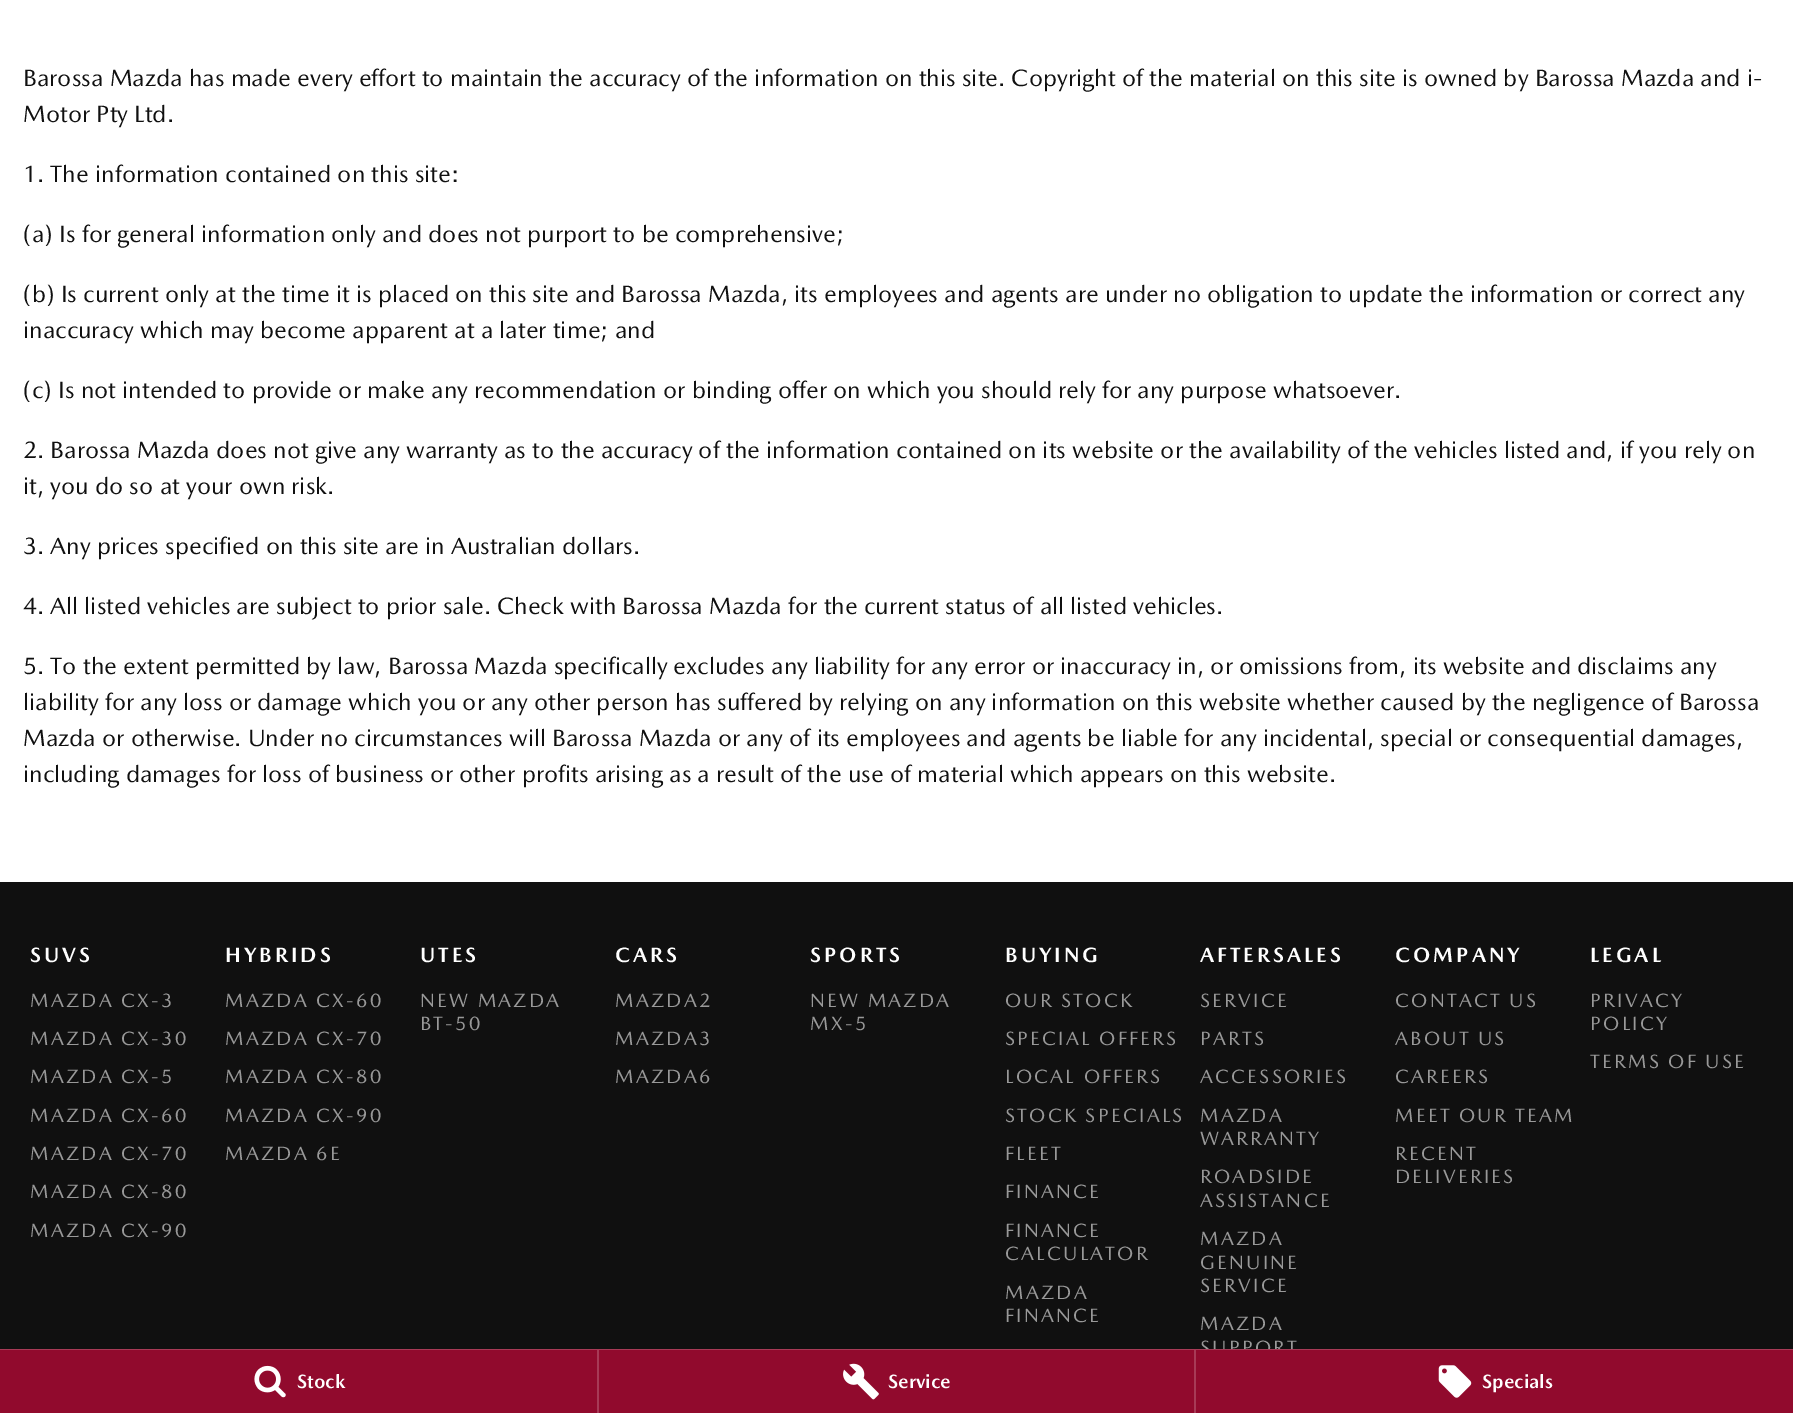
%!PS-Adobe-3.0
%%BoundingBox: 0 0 1814 1413
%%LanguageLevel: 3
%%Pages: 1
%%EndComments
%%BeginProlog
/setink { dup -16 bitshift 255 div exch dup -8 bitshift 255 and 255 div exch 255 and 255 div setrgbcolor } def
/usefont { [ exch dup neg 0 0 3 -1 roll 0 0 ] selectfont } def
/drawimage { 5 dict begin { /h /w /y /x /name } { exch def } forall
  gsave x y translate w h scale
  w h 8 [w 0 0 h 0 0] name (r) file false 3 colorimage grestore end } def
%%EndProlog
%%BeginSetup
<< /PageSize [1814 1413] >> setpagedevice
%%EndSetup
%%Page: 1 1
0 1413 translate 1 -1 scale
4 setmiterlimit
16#FFFFFF setink
0 0 1814 1413 rectfill
/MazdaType-Regular 24 usefont
16#101010 setink
[
    [(Barossa Mazda has made every effort to maintain the accuracy of the information on this site. Copyright of the material on this site is owned by Barossa Mazda and i-) 23 86]
    [(Motor Pty Ltd.) 23 122]
    [(1. The information contained on this site:) 23 182]
    [(\(a\) Is for general information only and does not purport to be comprehensive;) 23 242]
    [(\(b\) Is current only at the time it is placed on this site and Barossa Mazda, its employees and agents are under no obligation to update the information or correct any) 23 302]
    [(inaccuracy which may become apparent at a later time; and) 23 338]
    [(\(c\) Is not intended to provide or make any recommendation or binding offer on which you should rely for any purpose whatsoever.) 23 398]
    [(2. Barossa Mazda does not give any warranty as to the accuracy of the information contained on its website or the availability of the vehicles listed and, if you rely on) 23 458]
    [(it, you do so at your own risk.) 23 494]
    [(3. Any prices specified on this site are in Australian dollars.) 23 554]
    [(4. All listed vehicles are subject to prior sale. Check with Barossa Mazda for the current status of all listed vehicles.) 23 614]
    [(5. To the extent permitted by law, Barossa Mazda specifically excludes any liability for any error or inaccuracy in, or omissions from, its website and disclaims any) 23 674]
    [(liability for any loss or damage which you or any other person has suffered by relying on any information on this website whether caused by the negligence of Barossa) 23 710]
    [(Mazda or otherwise. Under no circumstances will Barossa Mazda or any of its employees and agents be liable for any incidental, special or consequential damages,) 23 746]
    [(including damages for loss of business or other profits arising as a result of the use of material which appears on this website.) 23 782]
] { aload pop moveto show } forall
0 882 1793 467 rectfill
/MazdaType-Bold 21 usefont
16#FFFFFF setink
30 962 moveto 3 0 (SUVS) ashow
/MazdaType-Regular 19.5 usefont
16#999999 setink
30 1007 moveto 2.25 0 (MAZDA CX-3) ashow
30 1045 moveto 2.25 0 (MAZDA CX-30) ashow
30 1083 moveto 2.25 0 (MAZDA CX-5) ashow
30 1122 moveto 2.25 0 (MAZDA CX-60) ashow
30 1160 moveto 2.25 0 (MAZDA CX-70) ashow
30 1198 moveto 2.25 0 (MAZDA CX-80) ashow
30 1237 moveto 2.25 0 (MAZDA CX-90) ashow
/MazdaType-Bold 21 usefont
16#FFFFFF setink
225 962 moveto 3 0 (HYBRIDS) ashow
/MazdaType-Regular 19.5 usefont
16#999999 setink
225 1007 moveto 2.25 0 (MAZDA CX-60) ashow
225 1045 moveto 2.25 0 (MAZDA CX-70) ashow
225 1083 moveto 2.25 0 (MAZDA CX-80) ashow
225 1122 moveto 2.25 0 (MAZDA CX-90) ashow
225 1160 moveto 2.25 0 (MAZDA 6E) ashow
/MazdaType-Bold 21 usefont
16#FFFFFF setink
420 962 moveto 3 0 (UTES) ashow
/MazdaType-Regular 19.5 usefont
16#999999 setink
420 1007 moveto 2.25 0 (NEW MAZDA) ashow
420 1030 moveto 2.25 0 (BT-50) ashow
/MazdaType-Bold 21 usefont
16#FFFFFF setink
615 962 moveto 3 0 (CARS) ashow
/MazdaType-Regular 19.5 usefont
16#999999 setink
615 1007 moveto 2.25 0 (MAZDA2) ashow
615 1045 moveto 2.25 0 (MAZDA3) ashow
615 1083 moveto 2.25 0 (MAZDA6) ashow
/MazdaType-Bold 21 usefont
16#FFFFFF setink
810 962 moveto 3 0 (SPORTS) ashow
/MazdaType-Regular 19.5 usefont
16#999999 setink
810 1007 moveto 2.25 0 (NEW MAZDA) ashow
810 1030 moveto 2.25 0 (MX-5) ashow
/MazdaType-Bold 21 usefont
16#FFFFFF setink
1005 962 moveto 3 0 (BUYING) ashow
/MazdaType-Regular 19.5 usefont
16#999999 setink
1005 1007 moveto 2.25 0 (OUR STOCK) ashow
1005 1045 moveto 2.25 0 (SPECIAL OFFERS) ashow
1005 1083 moveto 2.25 0 (LOCAL OFFERS) ashow
1005 1122 moveto 2.25 0 (STOCK SPECIALS) ashow
1005 1160 moveto 2.25 0 (FLEET) ashow
1005 1198 moveto 2.25 0 (FINANCE) ashow
1005 1237 moveto 2.25 0 (FINANCE) ashow
1005 1260 moveto 2.25 0 (CALCULATOR) ashow
1005 1299 moveto 2.25 0 (MAZDA) ashow
1005 1322 moveto 2.25 0 (FINANCE) ashow
/MazdaType-Bold 21 usefont
16#FFFFFF setink
1200 962 moveto 3 0 (AFTERSALES) ashow
/MazdaType-Regular 19.5 usefont
16#999999 setink
1200 1007 moveto 2.25 0 (SERVICE) ashow
1200 1045 moveto 2.25 0 (PARTS) ashow
1200 1083 moveto 2.25 0 (ACCESSORIES) ashow
1200 1122 moveto 2.25 0 (MAZDA) ashow
1200 1145 moveto 2.25 0 (WARRANTY) ashow
1200 1183 moveto 2.25 0 (ROADSIDE) ashow
1200 1207 moveto 2.25 0 (ASSISTANCE) ashow
1200 1245 moveto 2.25 0 (MAZDA) ashow
1200 1269 moveto 2.25 0 (GENUINE) ashow
1200 1292 moveto 2.25 0 (SERVICE) ashow
1200 1330 moveto 2.25 0 (MAZDA) ashow
1200 1354 moveto 2.25 0 (SUPPORT) ashow
/MazdaType-Bold 21 usefont
16#FFFFFF setink
1395 962 moveto 3 0 (COMPANY) ashow
/MazdaType-Regular 19.5 usefont
16#999999 setink
1395 1007 moveto 2.25 0 (CONTACT US) ashow
1395 1045 moveto 2.25 0 (ABOUT US) ashow
1395 1083 moveto 2.25 0 (CAREERS) ashow
1395 1122 moveto 2.25 0 (MEET OUR TEAM) ashow
1395 1160 moveto 2.25 0 (RECENT) ashow
1395 1183 moveto 2.25 0 (DELIVERIES) ashow
/MazdaType-Bold 21 usefont
16#FFFFFF setink
1590 962 moveto 3 0 (LEGAL) ashow
/MazdaType-Regular 19.5 usefont
16#999999 setink
1590 1007 moveto 2.25 0 (PRIVACY) ashow
1590 1030 moveto 2.25 0 (POLICY) ashow
1590 1068 moveto 2.25 0 (TERMS OF USE) ashow
[
    [0 1349 1793 1 16#A73A56]
    [0 1350 597 63 16#910A2D]
    [597 1350 2 63 16#A73A56]
] { aload pop setink rectfill } forall
(img1.raw) 254 1365 32 33 drawimage
/MazdaType-Bold 19.5 usefont
16#FFFFFF setink
297 1388 moveto (Stock) show
16#910A2D setink
599 1350 595 63 rectfill
16#A73A56 setink
1194 1350 2 63 rectfill
(img2.raw) 843 1363 36 37 drawimage
16#FFFFFF setink
888 1388 moveto (Service) show
16#910A2D setink
1196 1350 597 63 rectfill
(img3.raw) 1438 1365 34 33 drawimage
16#FFFFFF setink
1482 1388 moveto (Specials) show
showpage
%%EOF
